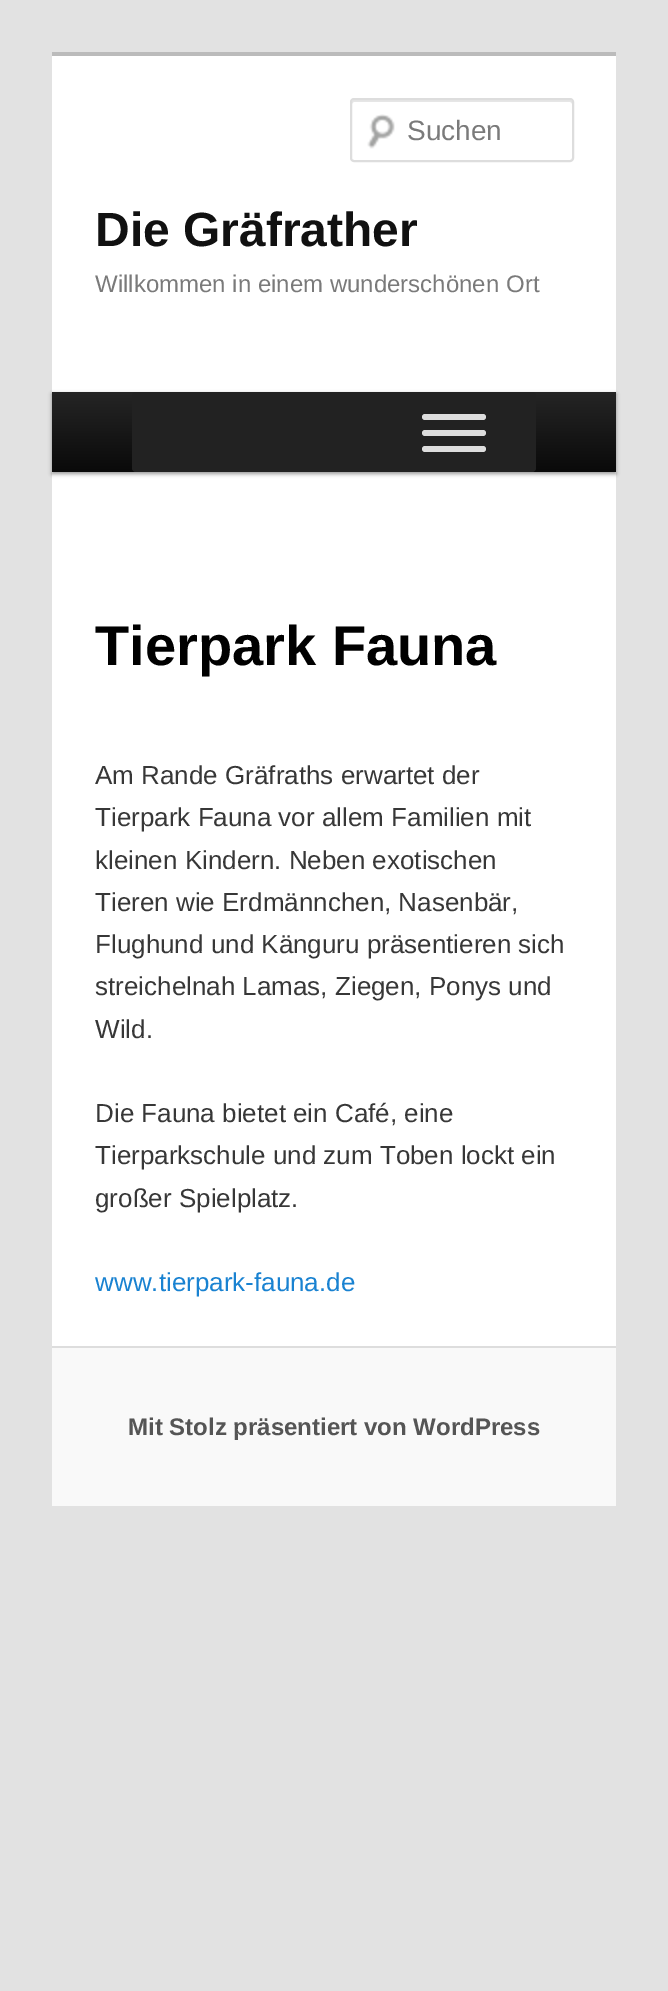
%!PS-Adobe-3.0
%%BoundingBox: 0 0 668 1991
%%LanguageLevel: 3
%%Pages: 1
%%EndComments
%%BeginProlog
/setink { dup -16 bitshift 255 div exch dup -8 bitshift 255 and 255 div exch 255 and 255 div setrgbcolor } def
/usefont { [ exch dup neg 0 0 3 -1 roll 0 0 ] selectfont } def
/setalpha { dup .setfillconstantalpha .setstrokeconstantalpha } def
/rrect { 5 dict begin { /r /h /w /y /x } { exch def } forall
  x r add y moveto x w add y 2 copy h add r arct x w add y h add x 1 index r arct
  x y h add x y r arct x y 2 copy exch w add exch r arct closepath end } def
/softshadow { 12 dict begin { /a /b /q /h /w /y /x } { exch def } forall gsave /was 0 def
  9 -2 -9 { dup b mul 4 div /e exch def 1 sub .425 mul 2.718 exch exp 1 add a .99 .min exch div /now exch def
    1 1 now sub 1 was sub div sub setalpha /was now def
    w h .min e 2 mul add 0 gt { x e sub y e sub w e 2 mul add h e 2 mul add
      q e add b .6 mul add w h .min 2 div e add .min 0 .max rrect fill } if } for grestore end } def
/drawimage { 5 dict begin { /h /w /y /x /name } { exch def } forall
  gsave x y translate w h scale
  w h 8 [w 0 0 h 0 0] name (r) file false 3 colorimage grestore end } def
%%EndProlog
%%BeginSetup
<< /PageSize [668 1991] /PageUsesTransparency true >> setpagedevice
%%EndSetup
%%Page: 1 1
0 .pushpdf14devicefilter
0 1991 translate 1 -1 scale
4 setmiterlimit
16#E2E2E2 setink
0 0 668 1991 rectfill
16#FFFFFF setink
52 56 564 1290 rectfill
16#BBBBBB setink
52 52 564 4 rectfill
(img1.raw) 367 114 28 35 drawimage
16#E6E6E6 setink
354 102 moveto 570 102 lineto 571 102 572 103 572 104 curveto 572 102 lineto 572 101 571 100 570 100 curveto 354 100 lineto 353 100 352 101 352 102 curveto 352 104 lineto 352 103 353 102 354 102 curveto closepath fill
16#DDDDDD setink
2 setlinewidth
351 99 222 62 3 rrect stroke
/LiberationSans-Regular 28 usefont
16#7A7A7A setink
407 140 moveto (Suchen) show
/LiberationSans-Bold 48 usefont
16#111111 setink
95 246 moveto (Die Gräfrather) show
/LiberationSans-Regular 24 usefont
16#7A7A7A setink
95 292 moveto (Willkommen in einem wunderschönen Ort) show
16#000000 setink
52 394 564 80 0 2 0.4 softshadow
gsave 52 392 moveto 616 392 lineto 616 472 lineto 52 472 lineto closepath clip newpath
<< /ShadingType 2 /ColorSpace /DeviceRGB /Coords [334 392 334 472] /Extend [true true] /Function << /FunctionType 2 /Domain [0 1] /C0 [0.145 0.145 0.145] /C1 [0.039 0.039 0.039] /N 1 >> >> shfill grestore
16#222222 setink
132 392 404 80 4 rrect fill
16#DDDDDD setink
422 414 64 6 3 rrect fill
422 430 64 6 3 rrect fill
422 446 64 6 3 rrect fill
/LiberationSans-Bold 56 usefont
16#000000 setink
95 665 moveto (Tierpark Fauna) show
/LiberationSans-Regular 26 usefont
16#373737 setink
[
    [(Am Rande Gräfraths erwartet der) 95 784]
    [(Tierpark Fauna vor allem Familien mit) 95 826]
    [(kleinen Kindern. Neben exotischen) 95 869]
    [(Tieren wie Erdmännchen, Nasenbär,) 95 911]
    [(Flughund und Känguru präsentieren sich) 95 953]
    [(streichelnah Lamas, Ziegen, Ponys und) 95 995]
    [(Wild.) 95 1038]
    [(Die Fauna bietet ein Café, eine) 95 1122]
    [(Tierparkschule und zum Toben lockt ein) 95 1164]
    [(großer Spielplatz.) 95 1207]
] { aload pop moveto show } forall
16#1982D1 setink
95 1291 moveto (www.tierpark-fauna.de) show
16#F9F9F9 setink
52 1348 564 158 rectfill
16#DDDDDD setink
52 1346 564 2 rectfill
/LiberationSans-Bold 24 usefont
16#555555 setink
128 1435 moveto (Mit Stolz präsentiert von WordPress) show
.poppdf14devicefilter showpage
%%EOF
